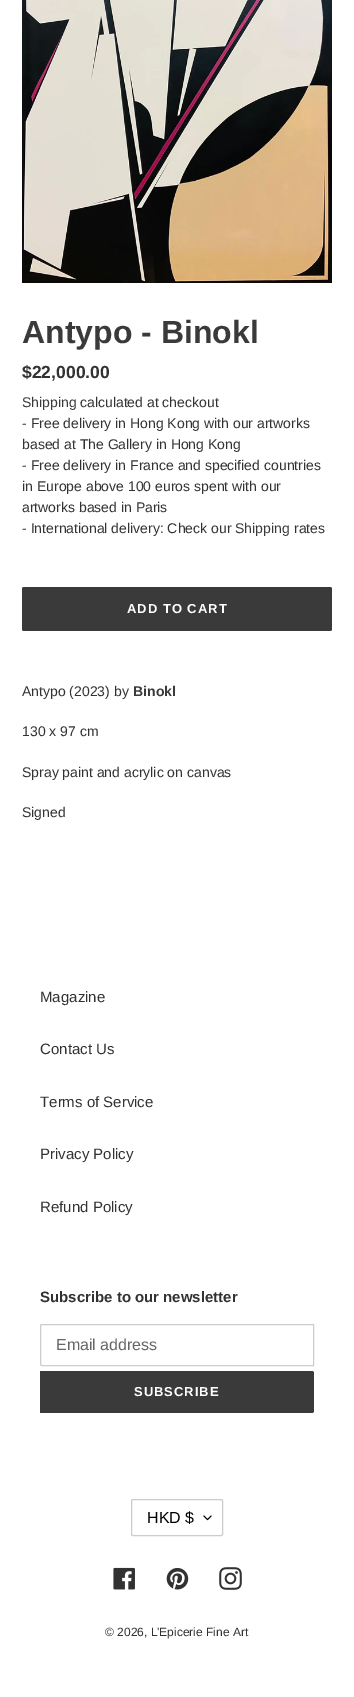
%!PS-Adobe-3.0
%%BoundingBox: 0 0 354 1697
%%LanguageLevel: 3
%%Pages: 1
%%EndComments
%%BeginProlog
/setink { dup -16 bitshift 255 div exch dup -8 bitshift 255 and 255 div exch 255 and 255 div setrgbcolor } def
/usefont { [ exch dup neg 0 0 3 -1 roll 0 0 ] selectfont } def
/rrect { 5 dict begin { /r /h /w /y /x } { exch def } forall
  x r add y moveto x w add y 2 copy h add r arct x w add y h add x 1 index r arct
  x y h add x y r arct x y 2 copy exch w add exch r arct closepath end } def
/drawimage { 5 dict begin { /h /w /y /x /name } { exch def } forall
  gsave x y translate w h scale
  w h 8 [w 0 0 h 0 0] name (r) file false 3 colorimage grestore end } def
%%EndProlog
%%BeginSetup
<< /PageSize [354 1697] >> setpagedevice
%%EndSetup
%%Page: 1 1
0 1697 translate 1 -1 scale
4 setmiterlimit
16#FFFFFF setink
0 0 354 1697 rectfill
(img1.raw) 22 0 310 283 drawimage
/LiberationSans-Bold 32 usefont
16#3A3A3A setink
22 343 moveto (Antypo - Binokl) show
/LiberationSans-Bold 17.5 usefont
16#333232 setink
22 378 moveto ($22,000.00) show
/LiberationSans-Regular 14 usefont
16#3A3A3A setink
22 407 moveto (Shipping) show
16#333232 setink
[
    [(calculated at checkout) 80 407]
    [(- Free delivery in Hong Kong with our artworks) 22 428]
    [(based at The Gallery in Hong Kong) 22 449]
    [(- Free delivery in France and specified countries) 22 470]
    [(in Europe above 100 euros spent with our) 22 491]
    [(artworks based in Paris) 22 512]
    [(- International delivery: Check our) 22 533]
] { aload pop moveto show } forall
16#3A3A3A setink
235 533 moveto (Shipping) show
16#333232 setink
294 533 moveto (rates) show
16#3A3A3A setink
22 587 310 44 2 rrect fill
/LiberationSans-Bold 13 usefont
16#FFFFFF setink
127 613 moveto 1 0 (ADD TO CART) ashow
/LiberationSans-Regular 14 usefont
16#333232 setink
22 696 moveto (Antypo \(2023\) by) show
/LiberationSans-Bold 14 usefont
16#3A3A3A setink
133 696 moveto (Binokl) show
/LiberationSans-Regular 14 usefont
16#333232 setink
[
    [(130 x 97 cm) 22 736]
    [(Spray paint and acrylic on canvas) 22 777]
    [(Signed) 22 817]
] { aload pop moveto show } forall
/LiberationSans-Regular 15 usefont
[
    [(Magazine) 40 1002]
    [(Contact Us) 40 1054]
    [(Terms of Service) 40 1107]
    [(Privacy Policy) 40 1159]
    [(Refund Policy) 40 1212]
] { aload pop moveto show } forall
/LiberationSans-Bold 15 usefont
40 1302 moveto (Subscribe to our newsletter) show
16#CCCCCC setink
42 1324.5 moveto 313.5 1324.5 lineto 313.5 1365.5 lineto 42 1365.5 lineto 41 1365.5 40.5 1365 40.5 1364 curveto 40.5 1326 lineto 40.5 1325 41 1324.5 42 1324.5 curveto closepath stroke
/LiberationSans-Regular 16 usefont
16#666666 setink
56 1350 moveto (Email address) show
16#3A3A3A setink
40 1371 moveto 312 1371 lineto 313 1371 314 1372 314 1373 curveto 314 1411 lineto 314 1412 313 1413 312 1413 curveto 40 1413 lineto closepath fill
/LiberationSans-Bold 13 usefont
16#FFFFFF setink
134 1396 moveto 1 0 (SUBSCRIBE) ashow
(img2.raw) 203 1515 9 6 drawimage
16#CCCCCC setink
131.5 1499.5 91 36 1.5 rrect stroke
/LiberationSans-Regular 16 usefont
16#000000 setink
147 1523 moveto (HKD $) show
(img3.raw) 113 1567 22 23 drawimage
(img4.raw) 166 1567 23 23 drawimage
(img5.raw) 219 1567 23 23 drawimage
/LiberationSans-Regular 12 usefont
16#333232 setink
105 1636 moveto (© 2026, L'Epicerie Fine Art) show
showpage
%%EOF
